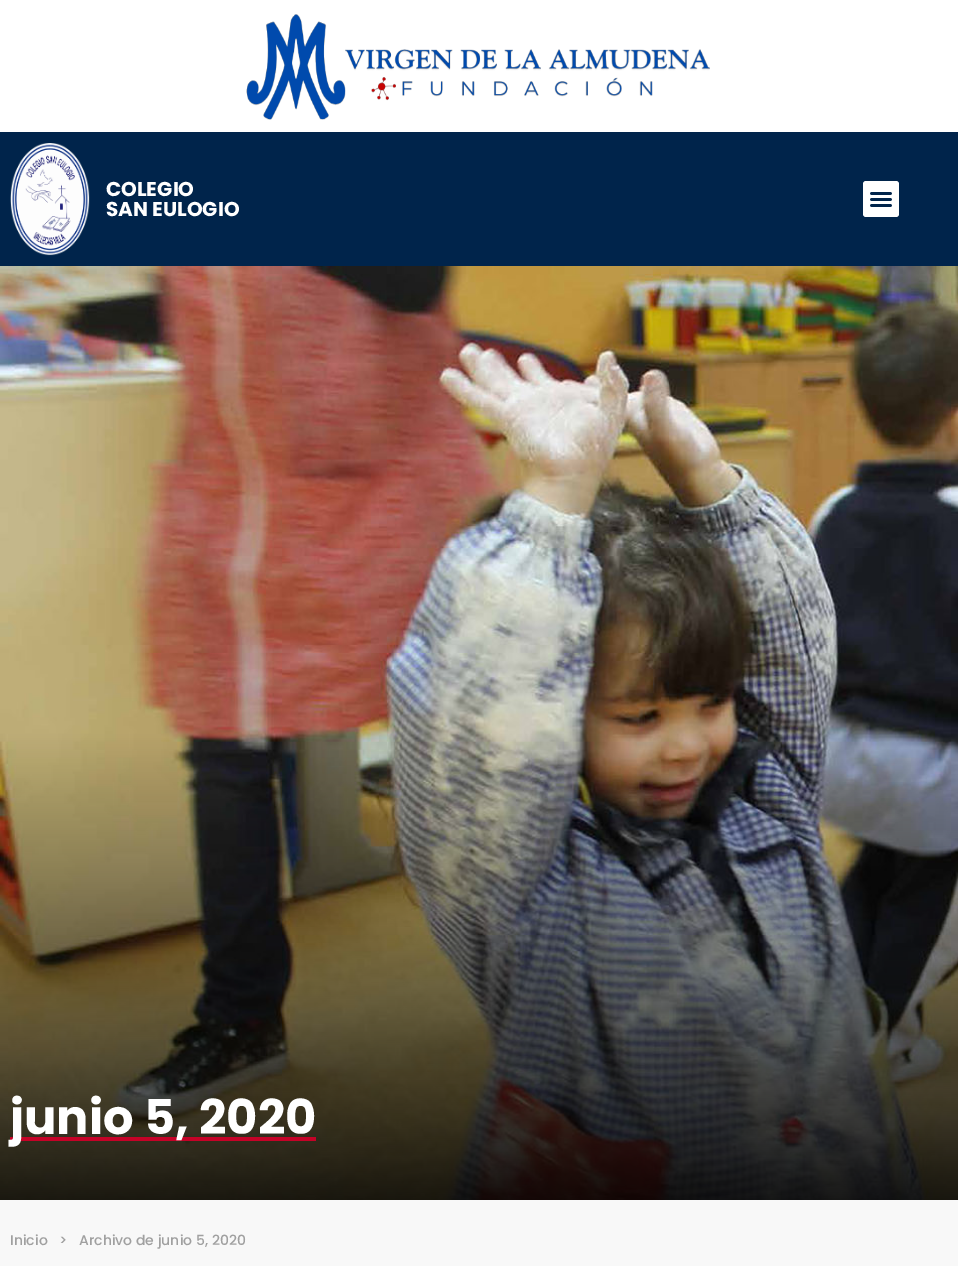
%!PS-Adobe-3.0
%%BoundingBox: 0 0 958 1266
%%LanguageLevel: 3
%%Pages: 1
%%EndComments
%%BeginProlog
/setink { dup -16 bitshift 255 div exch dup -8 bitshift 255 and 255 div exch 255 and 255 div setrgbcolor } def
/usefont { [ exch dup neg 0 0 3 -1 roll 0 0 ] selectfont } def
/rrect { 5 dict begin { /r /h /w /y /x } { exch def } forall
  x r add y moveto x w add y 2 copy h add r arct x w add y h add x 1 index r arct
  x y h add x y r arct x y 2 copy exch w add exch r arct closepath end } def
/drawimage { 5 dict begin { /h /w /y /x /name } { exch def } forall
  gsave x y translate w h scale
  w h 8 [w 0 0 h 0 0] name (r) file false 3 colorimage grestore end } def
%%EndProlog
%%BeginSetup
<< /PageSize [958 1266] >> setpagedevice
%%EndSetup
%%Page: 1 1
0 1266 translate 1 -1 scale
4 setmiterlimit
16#FFFFFF setink
0 0 958 1266 rectfill
(img1.raw) 246 14 464 106 drawimage
16#00244B setink
0 132 958 134 rectfill
(img2.raw) 10 143 80 113 drawimage
/Poppins-Bold 20 usefont
16#FFFFFF setink
106 196 moveto (COLEGIO) show
106 216 moveto (SAN EULOGIO) show
863 181 36 36 3 rrect fill
(img3.raw) 870 192 22 15 drawimage
(img4.raw) 0 266 958 934 drawimage
16#C50227 setink
10 1137 306 4 rectfill
/Poppins-Bold 48 usefont
16#FFFFFF setink
10 1134 moveto (junio 5, 2020) show
16#F8F8F8 setink
0 1200 958 66 rectfill
/Poppins-Medium 14 usefont
16#A0A0A0 setink
[
    [(Inicio) 10 1245]
    [(>) 59 1245]
    [(Archivo de junio 5, 2020) 79 1245]
] { aload pop moveto show } forall
showpage
%%EOF
